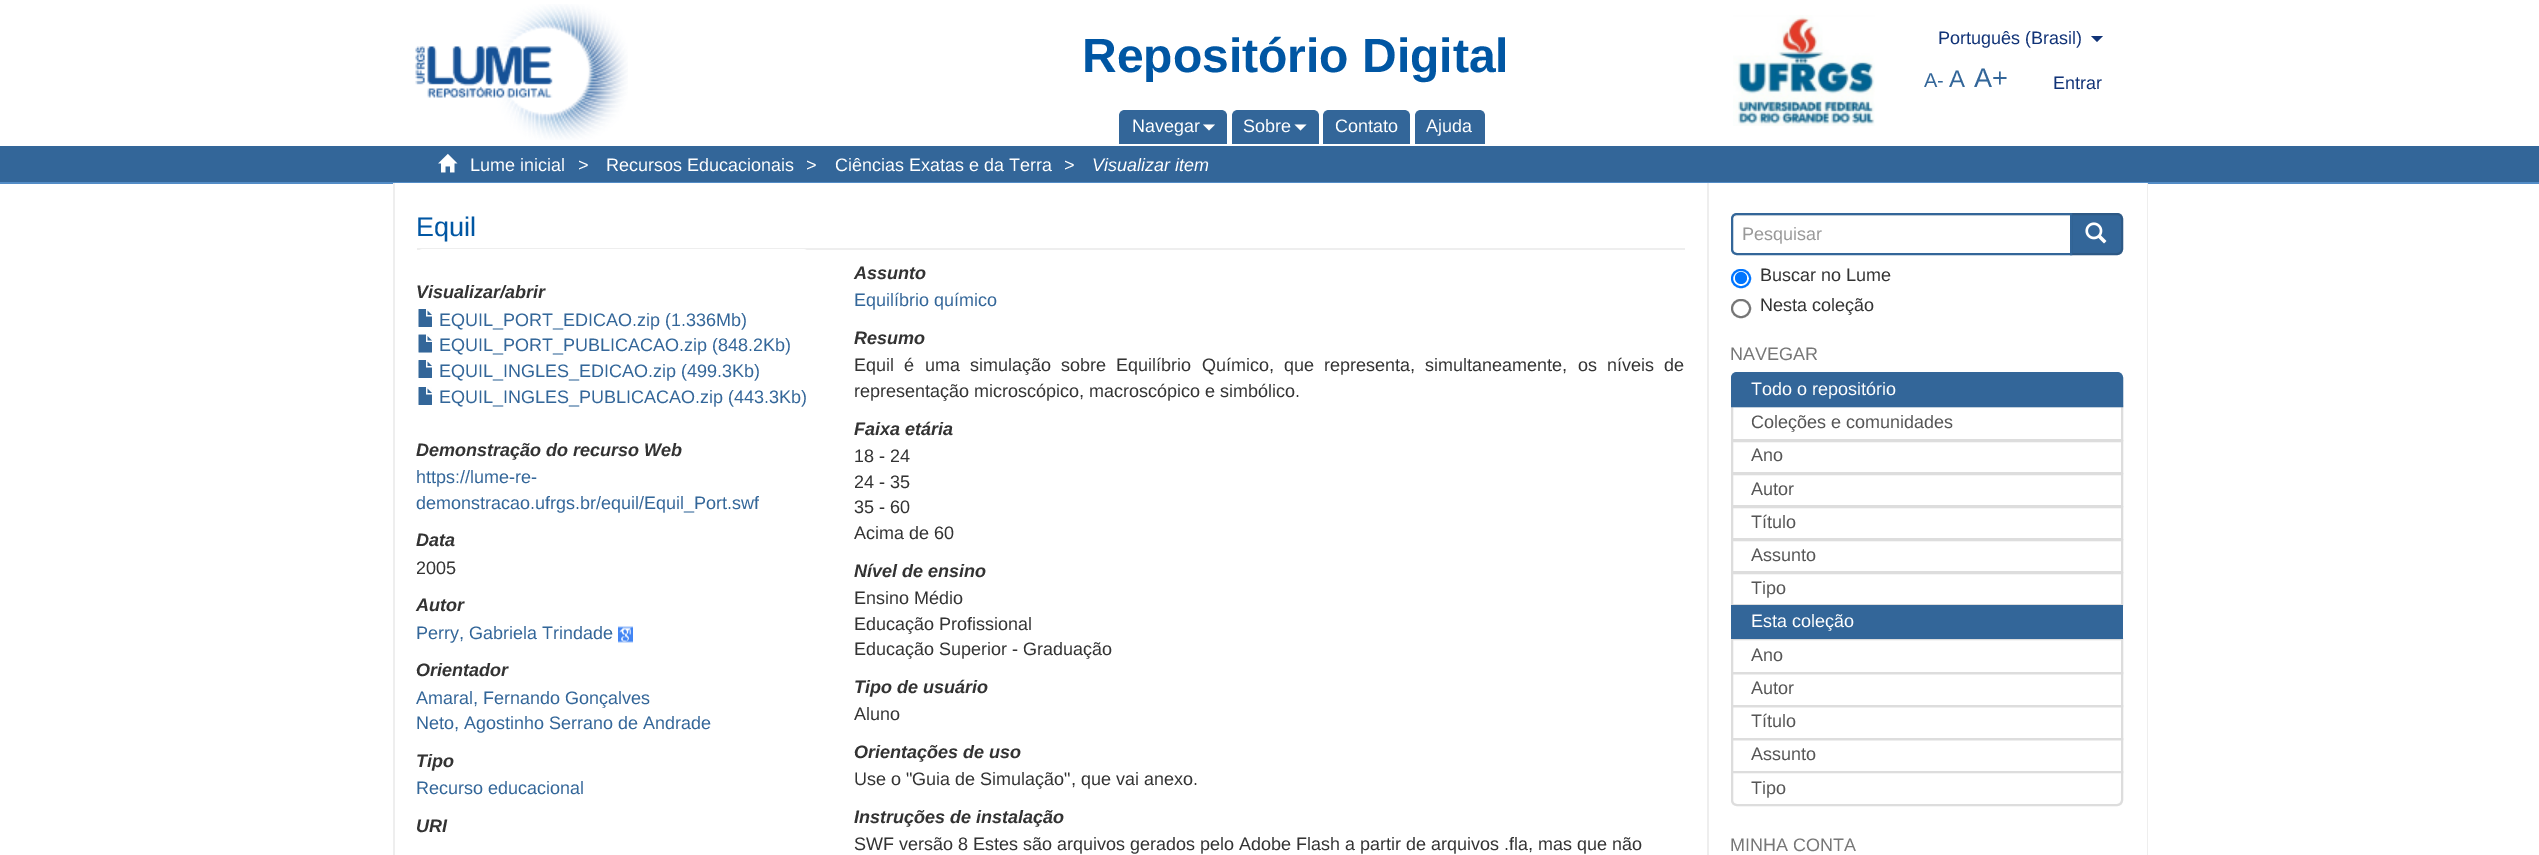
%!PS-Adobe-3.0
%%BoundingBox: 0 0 2539 855
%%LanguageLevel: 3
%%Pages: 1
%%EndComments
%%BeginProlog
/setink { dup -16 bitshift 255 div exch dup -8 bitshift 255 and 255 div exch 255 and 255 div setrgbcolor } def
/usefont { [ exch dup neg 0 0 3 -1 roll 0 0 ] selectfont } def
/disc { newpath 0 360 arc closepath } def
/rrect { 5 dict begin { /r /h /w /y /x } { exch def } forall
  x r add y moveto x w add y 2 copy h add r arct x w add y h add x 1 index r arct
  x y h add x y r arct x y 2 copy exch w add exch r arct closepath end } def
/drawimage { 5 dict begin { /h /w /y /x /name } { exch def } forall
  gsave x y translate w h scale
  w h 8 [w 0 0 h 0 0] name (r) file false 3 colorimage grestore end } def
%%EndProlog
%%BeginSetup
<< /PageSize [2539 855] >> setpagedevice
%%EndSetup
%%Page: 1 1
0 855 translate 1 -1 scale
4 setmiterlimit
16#FFFFFF setink
0 0 2539 855 rectfill
(img1.raw) 415 4 213 136 drawimage
/LiberationSans-Bold 48 usefont
16#0056A3 setink
1082 72 moveto (Repositório Digital) show
16#336699 setink
1125 110 moveto 1221 110 lineto 1224.5 110 1227 112.5 1227 116 curveto 1227 144 lineto 1119 144 lineto 1119 116 lineto 1119 112.5 1121.5 110 1125 110 curveto closepath fill
/LiberationSans-Regular 18 usefont
16#FFFFFF setink
1132 132 moveto (Navegar) show
1203 124.5 moveto 1215 124.5 lineto 1209 130.5 lineto closepath fill
16#336699 setink
1238 110 moveto 1313 110 lineto 1316.5 110 1319 112.5 1319 116 curveto 1319 144 lineto 1232 144 lineto 1232 116 lineto 1232 112.5 1234.5 110 1238 110 curveto closepath fill
16#FFFFFF setink
1243 132 moveto (Sobre) show
1294.5 124.5 moveto 1306.5 124.5 lineto 1300.5 130.5 lineto closepath fill
16#336699 setink
1329 110 moveto 1404 110 lineto 1407.5 110 1410 112.5 1410 116 curveto 1410 144 lineto 1323 144 lineto 1323 116 lineto 1323 112.5 1325.5 110 1329 110 curveto closepath fill
16#FFFFFF setink
1335 132 moveto (Contato) show
16#336699 setink
1421 110 moveto 1479 110 lineto 1482.5 110 1485 112.5 1485 116 curveto 1485 144 lineto 1415 144 lineto 1415 116 lineto 1415 112.5 1417.5 110 1421 110 curveto closepath fill
16#FFFFFF setink
1426 132 moveto (Ajuda) show
(img2.raw) 1733 15 142 111 drawimage
16#113377 setink
1938 44 moveto (Português \(Brasil\)) show
2091 36 moveto 2103 36 lineto 2097 42 lineto closepath fill
/LiberationSans-Regular 20 usefont
16#336699 setink
1924 87 moveto (A-) show
/LiberationSans-Regular 24 usefont
1949 87 moveto (A) show
/LiberationSans-Regular 27 usefont
1974 87 moveto (A+) show
/LiberationSans-Regular 18 usefont
16#113377 setink
2053 89 moveto (Entrar) show
16#336699 setink
0 146 2539 36 rectfill
16#538CC6 setink
0 182 2539 2 rectfill
(img3.raw) 438 153 20 20 drawimage
16#FFFFFF setink
[
    [(Lume inicial) 470 171]
    [(>) 578 171]
    [(Recursos Educacionais) 606 171]
    [(>) 806 171]
    [(Ciências Exatas e da Terra) 835 171]
    [(>) 1064 171]
] { aload pop moveto show } forall
/LiberationSans-Italic 18 usefont
1092 171 moveto (Visualizar item) show
[
    [395 183 1752 1 16#FEFEFE]
    [2147 183 1 672 16#EEEEEE]
    [393 183 2 672 16#EEEEEE]
    [417 248 1268 2 16#EEEEEE]
] { aload pop setink rectfill } forall
/LiberationSans-Regular 27 usefont
16#0056A3 setink
416 236 moveto (Equil) show
16#FFFFFF setink
417 249 392 12 6 rrect fill
/LiberationSans-BoldItalic 18 usefont
16#333333 setink
416 298 moveto (Visualizar/abrir) show
(img4.raw) 418 309 14 18 drawimage
/LiberationSans-Regular 18 usefont
16#336699 setink
439 326 moveto (EQUIL_PORT_EDICAO.zip \(1.336Mb\)) show
(img5.raw) 418 334 14 19 drawimage
439 351 moveto (EQUIL_PORT_PUBLICACAO.zip \(848.2Kb\)) show
(img4.raw) 418 360 14 18 drawimage
439 377 moveto (EQUIL_INGLES_EDICAO.zip \(499.3Kb\)) show
(img4.raw) 418 387 14 18 drawimage
439 403 moveto (EQUIL_INGLES_PUBLICACAO.zip \(443.3Kb\)) show
/LiberationSans-BoldItalic 18 usefont
16#333333 setink
416 456 moveto (Demonstração do recurso Web) show
/LiberationSans-Regular 18 usefont
16#336699 setink
416 483 moveto (https://lume-re-) show
416 509 moveto (demonstracao.ufrgs.br/equil/Equil_Port.swf) show
/LiberationSans-BoldItalic 18 usefont
16#333333 setink
416 546 moveto (Data) show
/LiberationSans-Regular 18 usefont
416 574 moveto (2005) show
/LiberationSans-BoldItalic 18 usefont
416 611 moveto (Autor) show
/LiberationSans-Regular 18 usefont
16#336699 setink
416 639 moveto (Perry, Gabriela Trindade) show
(img6.raw) 618 626 15 17 drawimage
/LiberationSans-BoldItalic 18 usefont
16#333333 setink
416 676 moveto (Orientador) show
/LiberationSans-Regular 18 usefont
16#336699 setink
416 704 moveto (Amaral, Fernando Gonçalves) show
416 729 moveto (Neto, Agostinho Serrano de Andrade) show
/LiberationSans-BoldItalic 18 usefont
16#333333 setink
416 767 moveto (Tipo) show
/LiberationSans-Regular 18 usefont
16#336699 setink
416 794 moveto (Recurso educacional) show
/LiberationSans-BoldItalic 18 usefont
16#333333 setink
416 832 moveto (URI) show
854 279 moveto (Assunto) show
/LiberationSans-Regular 18 usefont
16#336699 setink
854 306 moveto (Equilíbrio químico) show
/LiberationSans-BoldItalic 18 usefont
16#333333 setink
854 344 moveto (Resumo) show
/LiberationSans-Regular 18 usefont
854 371 moveto 5.25 0 32 (Equil é uma simulação sobre Equilíbrio Químico, que representa, simultaneamente, os níveis de) widthshow
854 397 moveto (representação microscópico, macroscópico e simbólico.) show
/LiberationSans-BoldItalic 18 usefont
854 435 moveto (Faixa etária) show
/LiberationSans-Regular 18 usefont
[
    [(18 - 24) 854 462]
    [(24 - 35) 854 488]
    [(35 - 60) 854 513]
    [(Acima de 60) 854 539]
] { aload pop moveto show } forall
/LiberationSans-BoldItalic 18 usefont
854 577 moveto (Nível de ensino) show
/LiberationSans-Regular 18 usefont
[
    [(Ensino Médio) 854 604]
    [(Educação Profissional) 854 630]
    [(Educação Superior - Graduação) 854 655]
] { aload pop moveto show } forall
/LiberationSans-BoldItalic 18 usefont
854 693 moveto (Tipo de usuário) show
/LiberationSans-Regular 18 usefont
854 720 moveto (Aluno) show
/LiberationSans-BoldItalic 18 usefont
854 758 moveto (Orientações de uso) show
/LiberationSans-Regular 18 usefont
854 785 moveto (Use o "Guia de Simulação", que vai anexo.) show
/LiberationSans-BoldItalic 18 usefont
854 823 moveto (Instruções de instalação) show
/LiberationSans-Regular 18 usefont
854 850 moveto (SWF versão 8 Estes são arquivos gerados pelo Adobe Flash a partir de arquivos .fla, mas que não) show
16#EEEEEE setink
1707 183 2 672 rectfill
16#336699 setink
2071 214 moveto 2117 214 lineto 2120 214 2122 216 2122 219 curveto 2122 249 lineto 2122 252 2120 254 2117 254 curveto 2071 254 lineto closepath gsave fill grestore
16#2D5986 setink
2 setlinewidth
stroke
16#FFFFFF setink
1737 213 moveto 2072 213 lineto 2072 255 lineto 1737 255 lineto 1733.5 255 1731 252.5 1731 249 curveto 1731 219 lineto 1731 215.5 1733.5 213 1737 213 curveto closepath fill
16#ECECEC setink
1737 216 moveto 2070 216 lineto 2070 215 lineto 1738 215 lineto 1736 215 1735 216 1734 217 curveto closepath fill
16#336699 setink
1737 214 moveto 2071 214 lineto 2071 254 lineto 1737 254 lineto 1734 254 1732 252 1732 249 curveto 1732 219 lineto 1732 216 1734 214 1737 214 curveto closepath stroke
16#999999 setink
1742 240 moveto (Pesquisar) show
(img7.raw) 2085 222 22 22 drawimage
16#0075FF setink
1732 270 18 17 8.5 rrect stroke
1741 278 6 disc fill
16#333333 setink
1760 281 moveto (Buscar no Lume) show
16#767676 setink
1732 300 18 17 8.5 rrect stroke
16#333333 setink
1760 311 moveto (Nesta coleção) show
16#777777 setink
1730 360 moveto (NAVEGAR) show
16#DDDDDD setink
1732 406 390 34 rectstroke
16#336699 setink
1737 373 moveto 2117 373 lineto 2120 373 2122 375 2122 378 curveto 2122 406 lineto 1732 406 lineto 1732 378 lineto 1732 375 1734 373 1737 373 curveto closepath gsave fill grestore
stroke
16#FFFFFF setink
1751 395 moveto (Todo o repositório) show
16#555555 setink
1751 428 moveto (Coleções e comunidades) show
16#DDDDDD setink
1732 441 390 32 rectstroke
16#555555 setink
1751 461 moveto (Ano) show
16#DDDDDD setink
1732 474 390 32 rectstroke
16#555555 setink
1751 495 moveto (Autor) show
16#DDDDDD setink
1732 507 390 32 rectstroke
16#555555 setink
1751 528 moveto (Título) show
16#DDDDDD setink
1732 540 390 32 rectstroke
16#555555 setink
1751 561 moveto (Assunto) show
16#DDDDDD setink
1732 573 390 32 rectstroke
16#555555 setink
1751 594 moveto (Tipo) show
16#DDDDDD setink
1732 639 390 34 rectstroke
16#336699 setink
1731 605 392 34 rectfill
16#FFFFFF setink
1751 627 moveto (Esta coleção) show
16#555555 setink
1751 661 moveto (Ano) show
16#DDDDDD setink
1732 673 390 33 rectstroke
16#555555 setink
1751 694 moveto (Autor) show
16#DDDDDD setink
1732 706 390 33 rectstroke
16#555555 setink
1751 727 moveto (Título) show
16#DDDDDD setink
1732 739 390 33 rectstroke
16#555555 setink
1751 760 moveto (Assunto) show
16#FFFFFF setink
1732 772 moveto 2122 772 lineto 2122 800 lineto 2122 803 2120 805 2117 805 curveto 1737 805 lineto 1734 805 1732 803 1732 800 curveto closepath gsave fill grestore
16#DDDDDD setink
stroke
16#555555 setink
1751 794 moveto (Tipo) show
16#777777 setink
1730 851 moveto (MINHA CONTA) show
showpage
%%EOF
